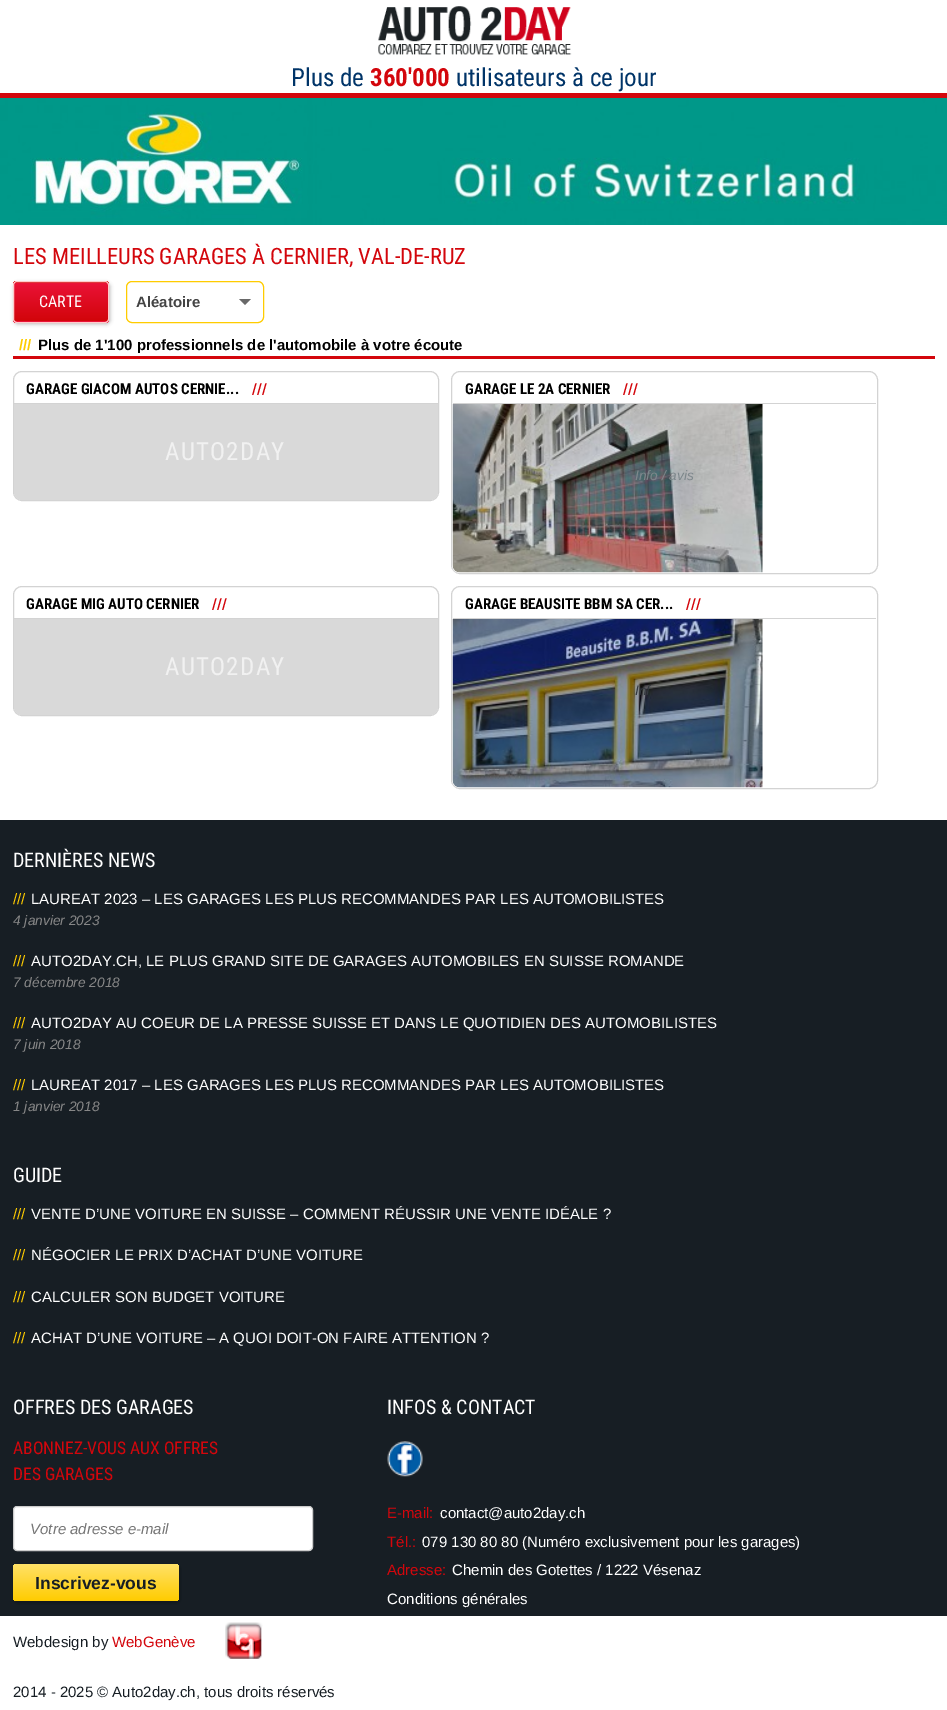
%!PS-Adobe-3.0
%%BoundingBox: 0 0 947 1710
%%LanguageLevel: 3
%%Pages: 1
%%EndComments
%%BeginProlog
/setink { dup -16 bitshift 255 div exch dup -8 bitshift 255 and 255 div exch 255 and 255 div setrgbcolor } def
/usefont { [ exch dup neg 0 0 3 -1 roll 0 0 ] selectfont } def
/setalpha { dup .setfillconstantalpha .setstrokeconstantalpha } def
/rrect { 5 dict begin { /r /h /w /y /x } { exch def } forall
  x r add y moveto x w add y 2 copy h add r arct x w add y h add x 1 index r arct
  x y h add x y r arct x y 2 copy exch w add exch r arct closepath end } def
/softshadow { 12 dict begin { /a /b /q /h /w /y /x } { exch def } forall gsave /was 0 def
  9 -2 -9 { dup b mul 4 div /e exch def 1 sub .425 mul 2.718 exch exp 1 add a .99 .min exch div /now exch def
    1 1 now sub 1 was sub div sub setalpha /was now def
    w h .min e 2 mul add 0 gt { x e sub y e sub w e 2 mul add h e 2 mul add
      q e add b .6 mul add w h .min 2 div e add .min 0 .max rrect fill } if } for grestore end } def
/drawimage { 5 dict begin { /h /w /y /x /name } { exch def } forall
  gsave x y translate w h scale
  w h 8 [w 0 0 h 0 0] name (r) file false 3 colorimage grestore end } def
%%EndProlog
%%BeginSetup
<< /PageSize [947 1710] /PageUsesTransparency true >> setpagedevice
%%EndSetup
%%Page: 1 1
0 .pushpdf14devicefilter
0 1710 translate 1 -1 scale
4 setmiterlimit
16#FFFFFF setink
0 0 947 1710 rectfill
16#D3060C setink
0 93 947 5 rectfill
(img1.raw) 378 6 194 49 drawimage
/RobotoCondensed-Regular 25 usefont
16#003468 setink
291 86 moveto (Plus de) show
/RobotoCondensed-Bold 25 usefont
16#D3060C setink
370 86 moveto (360'000) show
/RobotoCondensed-Regular 25 usefont
16#003468 setink
456 86 moveto (utilisateurs à ce jour) show
(img2.raw) 0 98 947 127 drawimage
/RobotoCondensed-Regular 22.5 usefont
16#D3060C setink
13 264 moveto (LES MEILLEURS GARAGES À CERNIER, VAL-DE-RUZ) show
16#000000 setink
14 283 96 41 4 2 0.3 softshadow
gsave
13 281 96 42 4 rrect clip newpath
gsave 13 281 moveto 109 281 lineto 109 283 lineto 13 283 lineto closepath clip newpath
<< /ShadingType 2 /ColorSpace /DeviceRGB /Coords [61 283 61 244] /Extend [true true] /Function << /FunctionType 2 /Domain [0 1] /C0 [0.824 0.02 0.039] /C1 [0.918 0.071 0.216] /N 1 >> >> shfill grestore
gsave 13 283 moveto 109 283 lineto 109 321 lineto 13 321 lineto closepath clip newpath
<< /ShadingType 2 /ColorSpace /DeviceRGB /Coords [61 321 61 283] /Extend [true true] /Function << /FunctionType 2 /Domain [0 1] /C0 [0.824 0.02 0.039] /C1 [0.918 0.071 0.216] /N 1 >> >> shfill grestore
gsave 13 321 moveto 109 321 lineto 109 323 lineto 13 323 lineto closepath clip newpath
<< /ShadingType 2 /ColorSpace /DeviceRGB /Coords [61 360 61 321] /Extend [true true] /Function << /FunctionType 2 /Domain [0 1] /C0 [0.824 0.02 0.039] /C1 [0.918 0.071 0.216] /N 1 >> >> shfill grestore
grestore
16#FFCBCB setink
13.5 281.5 95 41 3.5 rrect stroke
/RobotoCondensed-Regular 16 usefont
16#FFFFFF setink
39 307 moveto (CARTE) show
16#FFCC00 setink
126.5 281.5 137 41 5.5 rrect stroke
/LiberationSans-Bold 15 usefont
16#444444 setink
136 307 moveto (Aléatoire) show
16#696969 setink
239 299 moveto 251 299 lineto 245 305 lineto closepath fill
16#D3060C setink
13 356 922 3 rectfill
16#FFCC00 setink
19 350 moveto (///) show
16#000000 setink
38 350 moveto (Plus de 1'100 professionnels de l'automobile à votre écoute) show
16#D3D3D3 setink
13.5 371.5 425 129 8.5 rrect stroke
14 403 424 1 rectfill
/RobotoCondensed-Bold 15 usefont
16#000000 setink
26 394 moveto (GARAGE GIACOM AUTOS CERNIE...) show
16#D3060C setink
252 394 moveto (///) show
16#D9D9D9 setink
14 404 moveto 438 404 lineto 438 492 lineto 438 496.5 434.5 500 430 500 curveto 22 500 lineto 17.5 500 14 496.5 14 492 curveto closepath fill
/RobotoCondensed-Regular 25 usefont
16#F1F1F1 setink
165 460 moveto 1.25 0 (AUTO2DAY) ashow
16#D3D3D3 setink
451.5 371.5 426 202 8.5 rrect stroke
(img3.raw) 452 403 311 170 drawimage
453 403 423 1 rectfill
/RobotoCondensed-Bold 15 usefont
16#000000 setink
465 394 moveto (GARAGE LE 2A CERNIER) show
16#D3060C setink
623 394 moveto (///) show
/LiberationSans-Italic 13.75 usefont
16#7D878B setink
635 480 moveto (Info / avis) show
16#D3D3D3 setink
13.5 586.5 425 129 8.5 rrect stroke
14 618 424 1 rectfill
/RobotoCondensed-Bold 15 usefont
16#000000 setink
26 609 moveto (GARAGE MIG AUTO CERNIER) show
16#D3060C setink
212 609 moveto (///) show
16#D9D9D9 setink
14 619 moveto 438 619 lineto 438 707 lineto 438 711.5 434.5 715 430 715 curveto 22 715 lineto 17.5 715 14 711.5 14 707 curveto closepath fill
/RobotoCondensed-Regular 25 usefont
16#F1F1F1 setink
165 675 moveto 1.25 0 (AUTO2DAY) ashow
16#D3D3D3 setink
451.5 586.5 426 202 8.5 rrect stroke
(img4.raw) 452 618 311 170 drawimage
453 618 423 1 rectfill
/RobotoCondensed-Bold 15 usefont
16#000000 setink
465 609 moveto (GARAGE BEAUSITE BBM SA CER...) show
16#D3060C setink
686 609 moveto (///) show
/LiberationSans-Italic 13.75 usefont
16#343940 setink
635 695 moveto (Inf) show
16#171E24 setink
0 820 947 796 rectfill
/RobotoCondensed-Regular 20 usefont
16#FFFFFF setink
13 867 moveto (DERNIÈRES NEWS) show
/LiberationSans-Regular 15 usefont
16#FFCC00 setink
13 904 moveto (///) show
16#FFFFFF setink
31 904 moveto (LAUREAT 2023 – LES GARAGES LES PLUS RECOMMANDES PAR LES AUTOMOBILISTES) show
/LiberationSans-Italic 13.75 usefont
16#878787 setink
13 925 moveto (4 janvier 2023) show
/LiberationSans-Regular 15 usefont
16#FFCC00 setink
13 966 moveto (///) show
16#FFFFFF setink
31 966 moveto (AUTO2DAY.CH, LE PLUS GRAND SITE DE GARAGES AUTOMOBILES EN SUISSE ROMANDE) show
/LiberationSans-Italic 13.75 usefont
16#878787 setink
13 987 moveto (7 décembre 2018) show
/LiberationSans-Regular 15 usefont
16#FFCC00 setink
13 1028 moveto (///) show
16#FFFFFF setink
31 1028 moveto (AUTO2DAY AU COEUR DE LA PRESSE SUISSE ET DANS LE QUOTIDIEN DES AUTOMOBILISTES) show
/LiberationSans-Italic 13.75 usefont
16#878787 setink
13 1049 moveto (7 juin 2018) show
/LiberationSans-Regular 15 usefont
16#FFCC00 setink
13 1090 moveto (///) show
16#FFFFFF setink
31 1090 moveto (LAUREAT 2017 – LES GARAGES LES PLUS RECOMMANDES PAR LES AUTOMOBILISTES) show
/LiberationSans-Italic 13.75 usefont
16#878787 setink
13 1111 moveto (1 janvier 2018) show
/RobotoCondensed-Regular 20 usefont
16#FFFFFF setink
13 1182 moveto (GUIDE) show
/LiberationSans-Regular 15 usefont
16#FFCC00 setink
13 1219 moveto (///) show
16#FFFFFF setink
31 1219 moveto (VENTE D’UNE VOITURE EN SUISSE – COMMENT RÉUSSIR UNE VENTE IDÉALE ?) show
16#FFCC00 setink
13 1260 moveto (///) show
16#FFFFFF setink
31 1260 moveto (NÉGOCIER LE PRIX D’ACHAT D’UNE VOITURE) show
16#FFCC00 setink
13 1302 moveto (///) show
16#FFFFFF setink
31 1302 moveto (CALCULER SON BUDGET VOITURE) show
16#FFCC00 setink
13 1343 moveto (///) show
16#FFFFFF setink
31 1343 moveto (ACHAT D’UNE VOITURE – A QUOI DOIT-ON FAIRE ATTENTION ?) show
/RobotoCondensed-Regular 20 usefont
13 1414 moveto (OFFRES DES GARAGES) show
/RobotoCondensed-Regular 17.5 usefont
16#D3060C setink
13 1454 moveto (ABONNEZ-VOUS AUX OFFRES) show
13 1480 moveto (DES GARAGES) show
16#FFFFFF setink
13.5 1506.5 299 44 3.5 rrect gsave fill grestore
16#CCCCCC setink
stroke
/LiberationSans-Italic 15 usefont
16#757575 setink
30 1534 moveto (Votre adresse e-mail) show
16#000000 setink
14 1565 166 38 4 2 0.3 softshadow
gsave 13 1564 166 37 4 rrect clip newpath
<< /ShadingType 2 /ColorSpace /DeviceRGB /Coords [96 1601 96 1564] /Extend [true true] /Function << /FunctionType 2 /Domain [0 1] /C0 [1 0.8 0] /C1 [1 0.882 0.404] /N 1 >> >> shfill grestore
/LiberationSans-Bold 17.5 usefont
16#171E24 setink
35 1589 moveto (Inscrivez-vous) show
/RobotoCondensed-Regular 20 usefont
16#FFFFFF setink
387 1414 moveto (INFOS & CONTACT) show
(img5.raw) 387 1441 36 36 drawimage
/LiberationSans-Regular 15 usefont
16#D3060C setink
387 1518 moveto (E-mail:) show
16#FFFFFF setink
440 1518 moveto (contact@auto2day.ch) show
16#D3060C setink
387 1547 moveto (Tél.:) show
16#FFFFFF setink
422 1547 moveto (079 130 80 80 \(Numéro exclusivement pour les garages\)) show
16#D3060C setink
387 1575 moveto (Adresse:) show
16#FFFFFF setink
452 1575 moveto (Chemin des Gotettes / 1222 Vésenaz) show
387 1604 moveto (Conditions générales) show
(img6.raw) 225 1622 38 37 drawimage
16#171E24 setink
13 1647 moveto (Webdesign by) show
16#D3060C setink
112 1647 moveto (WebGenève) show
16#171E24 setink
13 1697 moveto (2014 - 2025 © Auto2day.ch, tous droits réservés) show
.poppdf14devicefilter showpage
%%EOF
